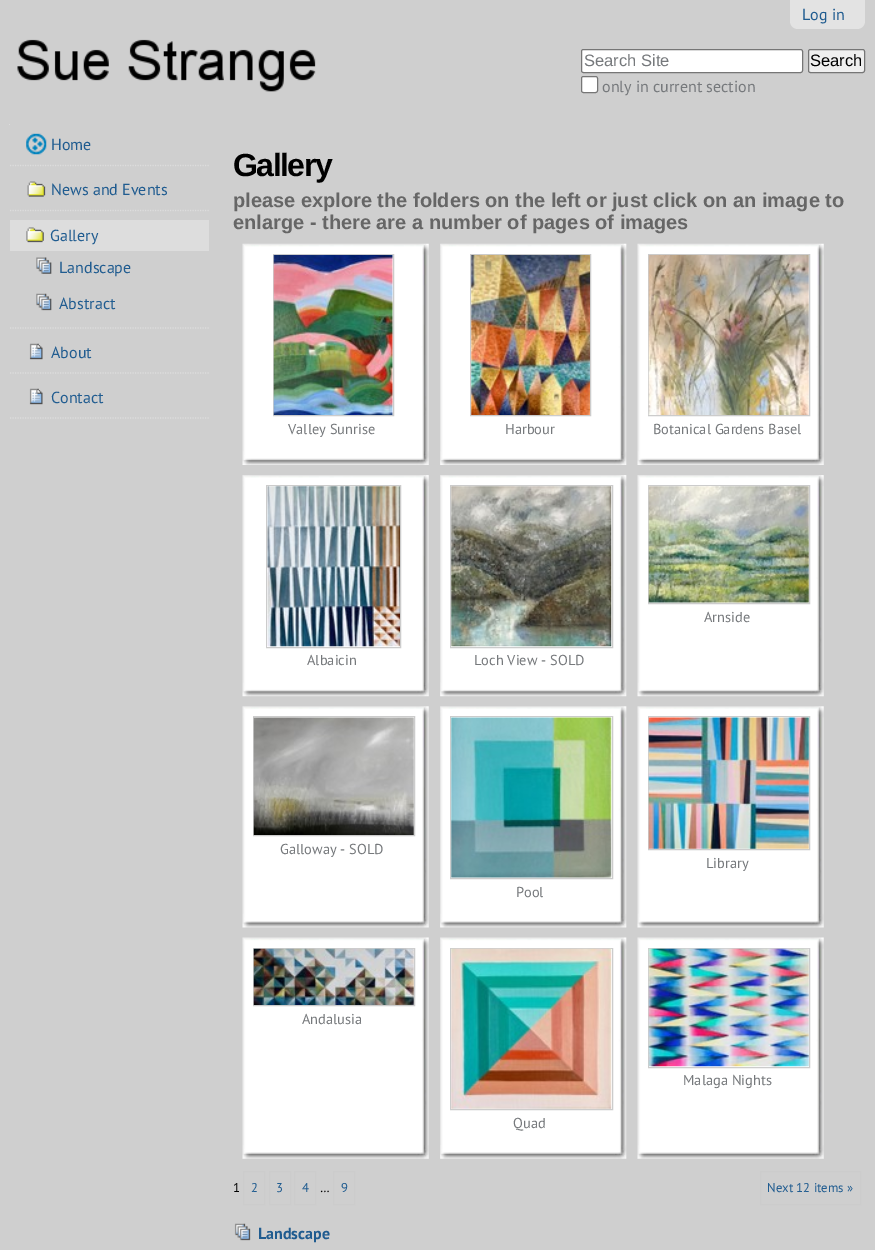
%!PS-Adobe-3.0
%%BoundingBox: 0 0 875 1250
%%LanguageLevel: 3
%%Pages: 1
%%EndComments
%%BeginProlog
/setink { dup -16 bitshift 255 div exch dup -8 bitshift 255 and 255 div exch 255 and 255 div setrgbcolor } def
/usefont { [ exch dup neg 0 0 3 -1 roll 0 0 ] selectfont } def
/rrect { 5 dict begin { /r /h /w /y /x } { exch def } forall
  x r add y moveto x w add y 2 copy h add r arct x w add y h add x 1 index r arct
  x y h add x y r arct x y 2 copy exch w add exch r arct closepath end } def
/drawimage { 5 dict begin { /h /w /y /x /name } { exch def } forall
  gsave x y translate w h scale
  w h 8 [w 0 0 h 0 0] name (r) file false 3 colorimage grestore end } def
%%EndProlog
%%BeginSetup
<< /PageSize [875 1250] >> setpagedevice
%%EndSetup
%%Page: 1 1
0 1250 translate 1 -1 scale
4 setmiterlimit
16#CFCFCF setink
0 0 875 1250 rectfill
16#E3E3E3 setink
790 0 moveto 865 0 lineto 865 21 lineto 865 25.5 861.5 29 857 29 curveto 798 29 lineto 793.5 29 790 25.5 790 21 curveto closepath fill
/PTSans-Regular 16 usefont
16#205C90 setink
802 20 moveto (Log in) show
(img1.raw) 17 39 299 53 drawimage
16#FFFFFF setink
581.5 49.5 221 23 2 rrect gsave fill grestore
16#767676 setink
stroke
/LiberationSans-Regular 16.5 usefont
16#76797C setink
584 66 moveto (Search Site) show
16#EFEFEF setink
808.5 49.5 56 23 2 rrect gsave fill grestore
16#767676 setink
stroke
16#000000 setink
810 66 moveto (Search) show
16#FFFFFF setink
581.5 76.5 16 16 2 rrect gsave fill grestore
16#767676 setink
stroke
/PTSans-Regular 16 usefont
16#76797C setink
602 92 moveto (only in current section) show
16#DDDDDD setink
9 124 1 1 rectfill
1.2 setlinewidth
[1.25 1.25] 0 setdash
10 165.5 moveto 209 165.5 lineto stroke
(img2.raw) 26 133 21 22 drawimage
16#205C90 setink
51 150 moveto (Home) show
16#DDDDDD setink
10 210.5 moveto 209 210.5 lineto stroke
(img3.raw) 27 181 19 16 drawimage
16#205C90 setink
51 195 moveto (News and Events) show
16#DDDDDD setink
10 328 moveto 209 328 lineto stroke
10 220 199 31 rectfill
(img4.raw) 26 227 18 16 drawimage
16#205C90 setink
50 241 moveto (Gallery) show
(img5.raw) 36 257 16 17 drawimage
59 273 moveto (Landscape) show
(img6.raw) 36 293 16 18 drawimage
59 309 moveto (Abstract) show
16#DDDDDD setink
10 373 moveto 209 373 lineto stroke
(img7.raw) 29 343 14 17 drawimage
16#205C90 setink
51 358 moveto (About) show
16#DDDDDD setink
10 418 moveto 209 418 lineto stroke
(img7.raw) 29 388 14 17 drawimage
16#205C90 setink
51 403 moveto (Contact) show
/LiberationSans-Bold 32 usefont
16#000000 setink
233 176 moveto -1.5 0 (Gallery) ashow
/LiberationSans-Bold 20 usefont
16#666666 setink
233 207 moveto (please explore the folders on the left or just click on an image to) show
233 229 moveto (enlarge - there are a number of pages of images) show
(img8.raw) 242 243 187 222 drawimage
16#CCCCCC setink
1 setlinewidth
[] 0 setdash
273.5 254.5 120 161 rectstroke
(img9.raw) 273 255 120 160 drawimage
/PTSans-Regular 14.4 usefont
16#76797C setink
288 434 moveto (Valley Sunrise) show
(img10.raw) 440 243 187 222 drawimage
16#CCCCCC setink
470.5 254.5 120 161 rectstroke
(img11.raw) 471 255 119 160 drawimage
16#76797C setink
505 434 moveto (Harbour) show
(img12.raw) 637 243 187 222 drawimage
16#CCCCCC setink
648.5 254.5 161 161 rectstroke
(img13.raw) 648 255 161 160 drawimage
16#76797C setink
653 434 moveto (Botanical Gardens Basel) show
(img14.raw) 637 475 187 222 drawimage
16#CCCCCC setink
648.5 485.5 161 118 rectstroke
(img15.raw) 648 486 161 117 drawimage
16#76797C setink
704 622 moveto (Arnside) show
(img16.raw) 242 475 187 222 drawimage
16#CCCCCC setink
266.5 485.5 134 162 rectstroke
(img17.raw) 267 486 133 161 drawimage
16#76797C setink
307 665 moveto (Albaicin) show
(img18.raw) 440 475 187 222 drawimage
16#CCCCCC setink
450.5 485.5 162 162 rectstroke
(img19.raw) 451 486 161 161 drawimage
16#76797C setink
474 665 moveto (Loch View - SOLD) show
(img20.raw) 242 706 187 222 drawimage
16#CCCCCC setink
253.5 716.5 161 119 rectstroke
(img21.raw) 253 717 161 118 drawimage
16#76797C setink
280 854 moveto (Galloway - SOLD) show
(img22.raw) 637 706 187 222 drawimage
16#CCCCCC setink
648.5 716.5 161 133 rectstroke
(img23.raw) 648 717 161 132 drawimage
16#76797C setink
706 868 moveto (Library) show
(img24.raw) 440 706 187 222 drawimage
16#CCCCCC setink
450.5 716.5 162 162 rectstroke
(img25.raw) 451 717 161 161 drawimage
16#76797C setink
516 897 moveto (Pool) show
(img26.raw) 242 937 187 222 drawimage
16#CCCCCC setink
253.5 948.5 161 57 rectstroke
(img27.raw) 253 948 161 57 drawimage
16#76797C setink
302 1024 moveto (Andalusia) show
(img28.raw) 637 937 187 222 drawimage
16#CCCCCC setink
648.5 948.5 161 119 rectstroke
(img29.raw) 648 948 161 119 drawimage
16#76797C setink
683 1085 moveto (Malaga Nights) show
(img30.raw) 440 937 187 222 drawimage
16#CCCCCC setink
450.5 948.5 162 161 rectstroke
(img31.raw) 451 948 161 161 drawimage
16#76797C setink
513 1128 moveto (Quad) show
/PTSans-Regular 12.75 usefont
16#000000 setink
233 1192 moveto (1) show
16#CCCCCC setink
243.5 1171.5 21 33 rectstroke
16#205C90 setink
251 1192 moveto (2) show
16#CCCCCC setink
269.5 1171.5 21 33 rectstroke
16#205C90 setink
276 1192 moveto (3) show
16#CCCCCC setink
294.5 1171.5 21 33 rectstroke
16#205C90 setink
302 1192 moveto (4) show
16#000000 setink
320 1192 moveto (…) show
16#CCCCCC setink
333.5 1171.5 21 33 rectstroke
16#205C90 setink
341 1192 moveto (9) show
16#CCCCCC setink
760.5 1171.5 100 33 rectstroke
16#205C90 setink
767 1192 moveto (Next 12 items ») show
(img32.raw) 234 1223 17 18 drawimage
/PTSans-Bold 16 usefont
258 1239 moveto (Landscape) show
showpage
%%EOF
